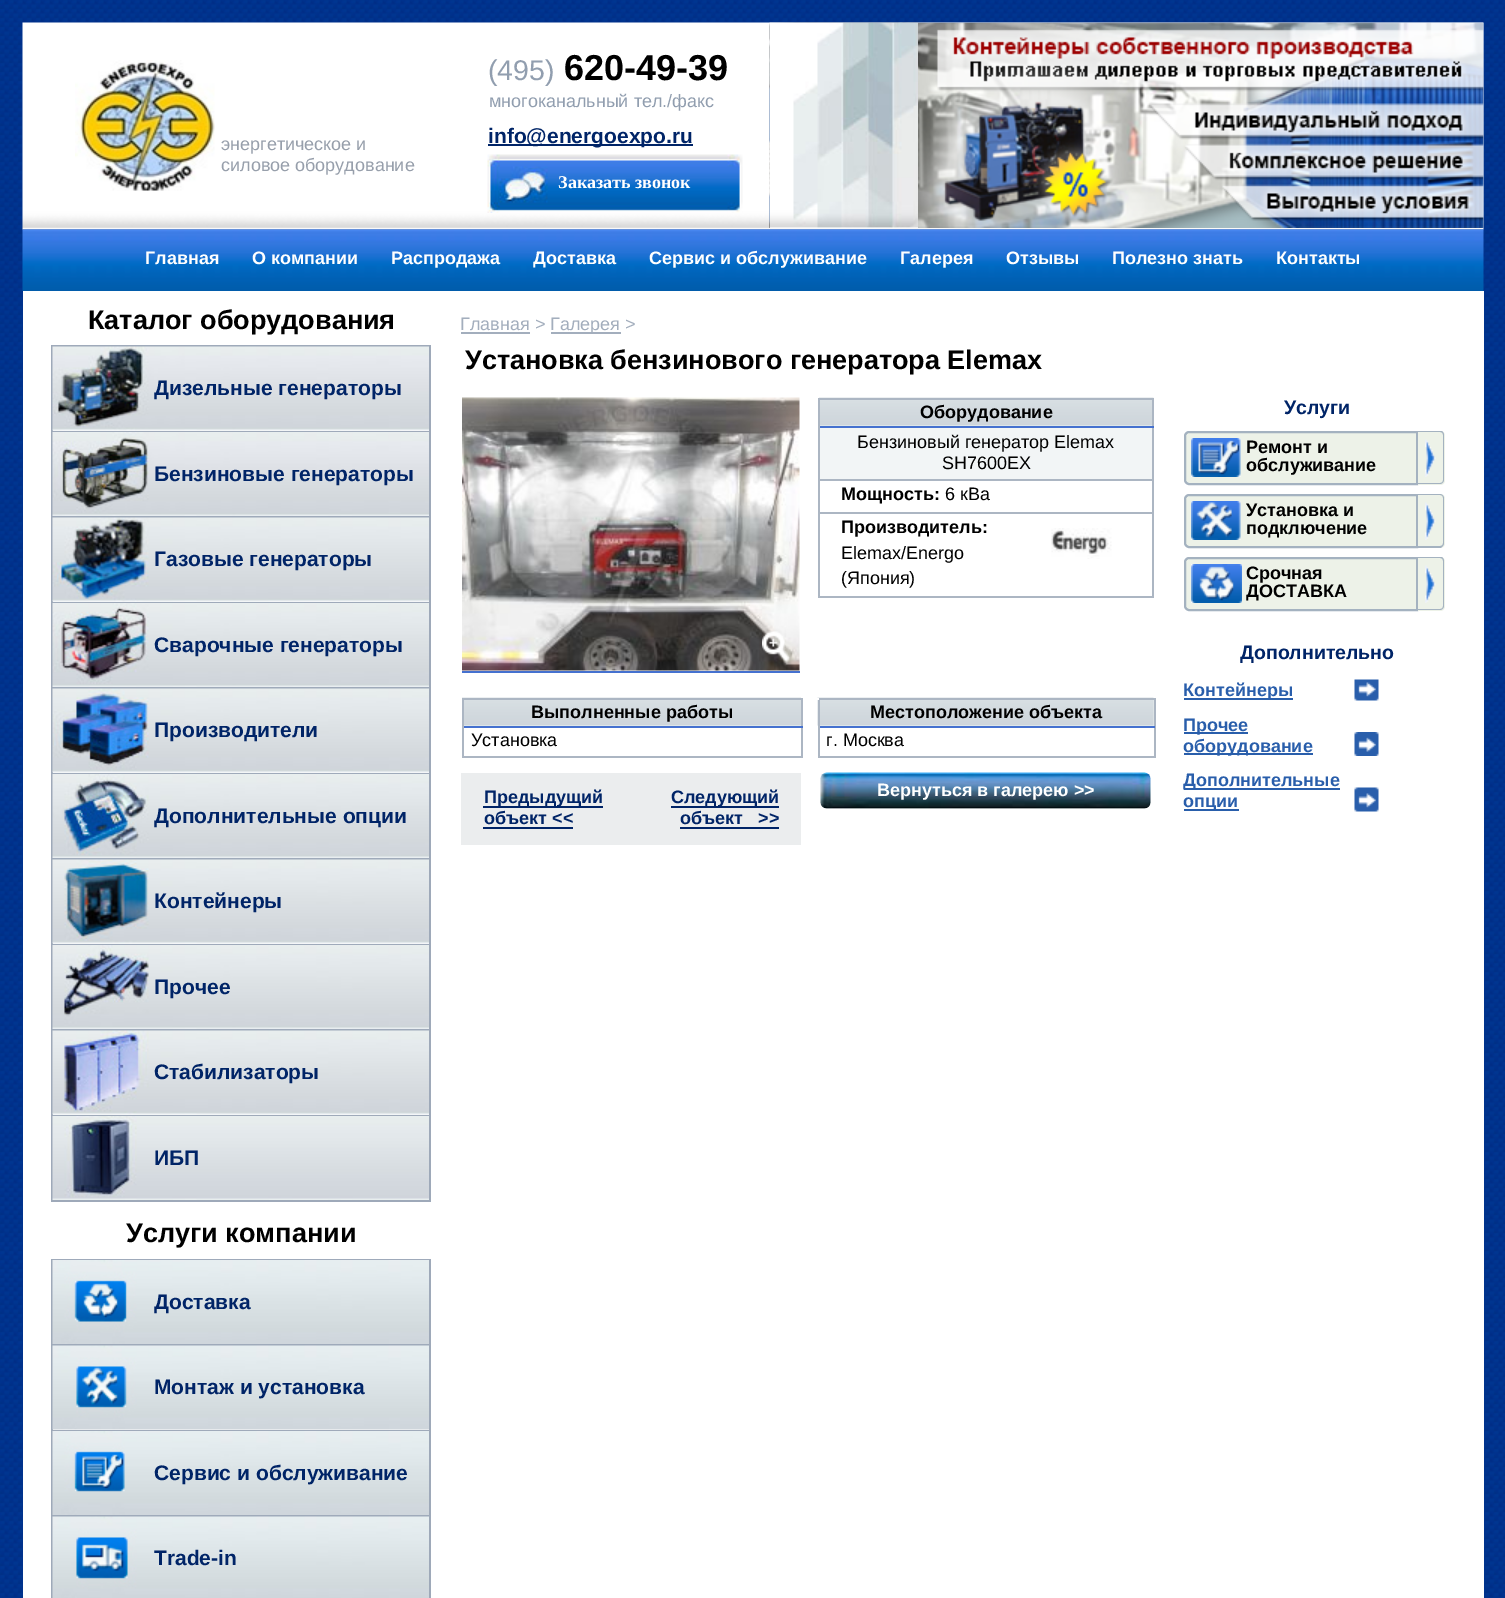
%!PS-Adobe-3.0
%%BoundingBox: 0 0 1505 1598
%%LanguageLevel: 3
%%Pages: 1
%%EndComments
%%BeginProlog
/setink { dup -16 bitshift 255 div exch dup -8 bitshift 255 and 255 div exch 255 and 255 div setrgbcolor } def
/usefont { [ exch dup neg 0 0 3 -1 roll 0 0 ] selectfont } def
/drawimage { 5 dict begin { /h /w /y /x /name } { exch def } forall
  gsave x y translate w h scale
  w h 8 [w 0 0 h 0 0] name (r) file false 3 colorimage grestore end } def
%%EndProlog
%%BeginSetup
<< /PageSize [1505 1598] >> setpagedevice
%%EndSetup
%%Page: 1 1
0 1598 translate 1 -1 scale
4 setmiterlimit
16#FFFFFF setink
0 0 1505 1598 rectfill
(img1.raw) 0 0 1505 1598 drawimage
(img2.raw) 22 22 1462 208 drawimage
(img3.raw) 75 60 140 131 drawimage
/LiberationSans-Regular 18 usefont
16#979FAB setink
221 150 moveto (энергетическое и) show
221 171 moveto (силовое оборудование) show
/LiberationSans-Regular 28.5 usefont
16#919EAF setink
488 80 moveto (\(495\)) show
/LiberationSans-Bold 36 usefont
16#000000 setink
564 80 moveto (620-49-39) show
/LiberationSans-Regular 18 usefont
16#919EAF setink
489 107 moveto (многоканальный тел./факс) show
16#002467 setink
488 144 205 2 rectfill
/LiberationSans-Bold 21 usefont
488 143 moveto (info@energoexpo.ru) show
(img4.raw) 487 154 256 59 drawimage
/LiberationSerif-Bold 18 usefont
16#FFFFFF setink
558 188 moveto (Заказать звонок) show
(img5.raw) 769 22 715 206 drawimage
(img6.raw) 769 22 149 206 drawimage
(img7.raw) 22 229 1462 62 drawimage
/LiberationSans-Bold 18 usefont
[
    [(Главная) 145 264]
    [(О компании) 252 264]
    [(Распродажа) 391 264]
    [(Доставка) 533 264]
    [(Сервис и обслуживание) 649 264]
    [(Галерея) 900 264]
    [(Отзывы) 1006 264]
    [(Полезно знать) 1112 264]
    [(Контакты) 1276 264]
] { aload pop moveto show } forall
23 291 1461 1307 rectfill
/LiberationSans-Bold 27 usefont
16#000000 setink
88 329 moveto (Каталог оборудования) show
[
    [429 345 2 857 16#9EA9B9]
    [51 1200 380 2 16#9EA9B9]
    [51 345 2 857 16#9EA9B9]
    [53 345 376 2 16#9FAABA]
] { aload pop setink rectfill } forall
(img8.raw) 52 346 377 85 drawimage
/LiberationSans-Bold 21 usefont
16#002467 setink
154 395 moveto (Дизельные генераторы) show
16#9FAABA setink
53 431 376 1 rectfill
(img9.raw) 52 432 377 84 drawimage
16#002467 setink
154 481 moveto (Бензиновые генераторы) show
16#9FAABA setink
53 516 376 2 rectfill
(img10.raw) 52 517 377 85 drawimage
16#002467 setink
154 566 moveto (Газовые генераторы) show
16#9FAABA setink
53 602 376 1 rectfill
(img11.raw) 52 603 377 84 drawimage
16#002467 setink
154 652 moveto (Сварочные генераторы) show
16#9FAABA setink
53 687 376 2 rectfill
(img12.raw) 52 688 377 85 drawimage
16#002467 setink
154 737 moveto (Производители) show
16#9FAABA setink
53 773 376 1 rectfill
(img13.raw) 52 774 377 84 drawimage
16#002467 setink
154 823 moveto (Дополнительные опции) show
16#9FAABA setink
53 858 376 2 rectfill
(img14.raw) 52 859 377 85 drawimage
16#002467 setink
154 908 moveto (Контейнеры) show
16#9FAABA setink
53 944 376 1 rectfill
(img15.raw) 52 945 377 84 drawimage
16#002467 setink
154 994 moveto (Прочее) show
16#9FAABA setink
53 1029 376 2 rectfill
(img16.raw) 52 1030 377 85 drawimage
16#002467 setink
154 1079 moveto (Стабилизаторы) show
16#9FAABA setink
53 1115 376 1 rectfill
(img17.raw) 52 1116 377 84 drawimage
16#002467 setink
154 1165 moveto (ИБП) show
/LiberationSans-Bold 27 usefont
16#000000 setink
126 1242 moveto (Услуги компании) show
[
    [429 1259 2 339 16#9EA9B9]
    [51 1259 2 339 16#9EA9B9]
    [53 1259 376 1 16#9FAABA]
] { aload pop setink rectfill } forall
(img18.raw) 52 1260 377 84 drawimage
/LiberationSans-Bold 21 usefont
16#002467 setink
154 1309 moveto (Доставка) show
16#9FAABA setink
53 1344 376 2 rectfill
(img19.raw) 52 1345 377 85 drawimage
16#002467 setink
154 1394 moveto (Монтаж и установка) show
16#9FAABA setink
53 1430 376 1 rectfill
(img20.raw) 52 1431 377 84 drawimage
16#002467 setink
154 1480 moveto (Сервис и обслуживание) show
16#9FAABA setink
53 1515 376 2 rectfill
(img21.raw) 52 1516 377 82 drawimage
16#002467 setink
154 1565 moveto (Trade-in) show
/LiberationSans-Regular 18 usefont
16#A3AEBD setink
460 330 moveto (Главная >) show
461 332 69 2 rectfill
551 332 70 2 rectfill
550 330 moveto (Галерея >) show
/LiberationSans-Bold 27 usefont
16#000000 setink
465 369 moveto (Установка бензинового генератора Elemax) show
(img22.raw) 462 397 338 274 drawimage
(img23.raw) 762 631 29 32 drawimage
16#4571CF setink
462 671 338 2 rectfill
(img24.raw) 819 397 335 29 drawimage
[
    [818 398 336 2 16#ACB6C3]
    [1152 426 2 171 16#ACB6C3]
    [1152 398 2 30 16#ACB6C3]
    [818 596 336 2 16#ACB6C3]
    [818 512 2 85 16#ACB6C3]
    [818 512 336 2 16#ACB6C3]
    [818 479 2 34 16#ACB6C3]
    [818 479 336 2 16#ACB6C3]
    [818 426 2 54 16#ACB6C3]
    [818 426 336 2 16#4571CF]
    [818 398 2 30 16#ACB6C3]
] { aload pop setink rectfill } forall
/LiberationSans-Bold 18 usefont
16#000000 setink
920 418 moveto (Оборудование) show
16#F2F5F6 setink
820 428 332 51 rectfill
/LiberationSans-Regular 18 usefont
16#000000 setink
857 448 moveto (Бензиновый генератор Elemax) show
942 469 moveto (SH7600EX) show
/LiberationSans-Bold 18 usefont
841 500 moveto (Мощность:) show
/LiberationSans-Regular 18 usefont
945 500 moveto (6 кВа) show
/LiberationSans-Bold 18 usefont
841 533 moveto (Производитель:) show
(img25.raw) 1051 528 61 31 drawimage
/LiberationSans-Regular 18 usefont
841 559 moveto (Elemax/Energo) show
841 584 moveto (\(Япония\)) show
16#E8EEEE setink
1153 700 1 26 rectfill
(img27.raw) 817 697 337 29 drawimage
[
    [818 698 337 2 16#ACB6C3]
    [1154 726 2 32 16#ACB6C3]
    [1154 698 2 30 16#ACB6C3]
    [818 756 337 2 16#ACB6C3]
    [818 726 2 32 16#ACB6C3]
    [818 726 1 2 16#FFFFFF]
    [818 726 337 2 16#4571CF]
    [818 698 2 30 16#ACB6C3]
    [817 698 2 2 16#FFFFFF]
] { aload pop setink rectfill } forall
(img26.raw) 462 697 339 29 drawimage
[
    [462 698 341 2 16#ACB6C3]
    [801 726 2 32 16#ACB6C3]
    [801 698 2 30 16#ACB6C3]
    [462 756 341 2 16#ACB6C3]
    [462 726 2 32 16#ACB6C3]
    [462 726 341 2 16#4571CF]
    [462 698 2 30 16#ACB6C3]
] { aload pop setink rectfill } forall
/LiberationSans-Bold 18 usefont
16#000000 setink
531 718 moveto (Выполненные работы) show
870 718 moveto (Местоположение объекта) show
/LiberationSans-Regular 18 usefont
471 746 moveto (Установка) show
826 746 moveto (г. Москва) show
16#EBEDEE setink
461 773 340 72 rectfill
16#002467 setink
483 806 120 2 rectfill
/LiberationSans-Bold 18 usefont
484 803 moveto (Предыдущий) show
484 824 moveto (объект <<) show
483 827 90 2 rectfill
671 806 108 2 rectfill
671 803 moveto (Следующий) show
680 824 moveto (объект   >>) show
680 827 99 2 rectfill
(img28.raw) 820 772 331 37 drawimage
16#FFFFFF setink
877 796 moveto (Вернуться в галерею >>) show
/LiberationSans-Bold 19.5 usefont
16#002467 setink
1284 414 moveto (Услуги) show
16#EDF2E8 setink
1189 432 moveto 1417 432 lineto 1417 484 lineto 1189 484 lineto 1187 484 1185 482 1185 480 curveto 1185 436 lineto 1185 434 1187 432 1189 432 curveto closepath gsave fill grestore
16#A4B2C0 setink
2 setlinewidth
stroke
(img29.raw) 1191 438 50 39 drawimage
/LiberationSans-Bold 18 usefont
16#000000 setink
1246 453 moveto (Ремонт и) show
1246 471 moveto (обслуживание) show
16#EDF2E8 setink
1418 431 moveto 1440 431 lineto 1443 431 1445 433 1445 436 curveto 1445 480 lineto 1445 483 1443 485 1440 485 curveto 1418 485 lineto closepath fill
gsave
1184 431 267 54 rectclip
16#A4B2C0 setink
1418 430 moveto 1440 430 lineto 1442 430 1444 433 1444 435 curveto 1444 480 lineto 1444 482 1442 484 1440 484 curveto 1418 484 lineto closepath 1418 432 moveto 1440 432 lineto 1442 432 1443 433 1443 435 curveto 1443 480 lineto 1443 482 1442 483 1440 483 curveto 1418 483 lineto closepath eofill
grestore
(img30.raw) 1425 439 11 38 drawimage
1189 495 moveto 1417 495 lineto 1417 547 lineto 1189 547 lineto 1187 547 1185 545 1185 543 curveto 1185 499 lineto 1185 497 1187 495 1189 495 curveto closepath gsave fill grestore
16#A4B2C0 setink
stroke
(img31.raw) 1191 501 50 39 drawimage
16#000000 setink
1246 516 moveto (Установка и) show
1246 534 moveto (подключение) show
16#EDF2E8 setink
1418 494 moveto 1440 494 lineto 1443 494 1445 496 1445 499 curveto 1445 543 lineto 1445 546 1443 548 1440 548 curveto 1418 548 lineto closepath fill
16#A4B2C0 setink
1418 494 moveto 1440 494 lineto 1442 494 1444 496 1444 498 curveto 1444 543 lineto 1444 545 1442 548 1440 548 curveto 1418 548 lineto closepath 1418 495 moveto 1440 495 lineto 1442 495 1443 496 1443 498 curveto 1443 543 lineto 1443 545 1442 546 1440 546 curveto 1418 546 lineto closepath eofill
(img30.raw) 1425 502 11 38 drawimage
16#EDF2E8 setink
1189 558 moveto 1417 558 lineto 1417 610 lineto 1189 610 lineto 1187 610 1185 608 1185 606 curveto 1185 562 lineto 1185 560 1187 558 1189 558 curveto closepath gsave fill grestore
16#A4B2C0 setink
stroke
(img32.raw) 1191 564 51 39 drawimage
16#000000 setink
1246 579 moveto (Срочная) show
1246 597 moveto (ДОСТАВКА) show
16#EDF2E8 setink
1418 557 moveto 1440 557 lineto 1443 557 1445 559 1445 562 curveto 1445 606 lineto 1445 609 1443 611 1440 611 curveto 1418 611 lineto closepath fill
gsave
1184 557 267 54 rectclip
16#A4B2C0 setink
1418 556 moveto 1440 556 lineto 1442 556 1444 559 1444 561 curveto 1444 606 lineto 1444 608 1442 610 1440 610 curveto 1418 610 lineto closepath 1418 558 moveto 1440 558 lineto 1442 558 1443 559 1443 561 curveto 1443 606 lineto 1443 608 1442 609 1440 609 curveto 1418 609 lineto closepath eofill
grestore
(img30.raw) 1425 565 11 38 drawimage
/LiberationSans-Bold 19.5 usefont
16#002467 setink
1240 659 moveto (Дополнительно) show
(img33.raw) 1354 679 25 22 drawimage
16#295EAB setink
1184 698 109 2 rectfill
/LiberationSans-Bold 18 usefont
1183 696 moveto (Контейнеры) show
(img34.raw) 1354 732 25 24 drawimage
1184 732 64 2 rectfill
1183 731 moveto (Прочее) show
1184 753 129 2 rectfill
1183 752 moveto (оборудование) show
(img35.raw) 1354 787 25 25 drawimage
1184 788 156 2 rectfill
1183 786 moveto (Дополнительные) show
1184 809 55 2 rectfill
1183 807 moveto (опции) show
showpage
%%EOF
